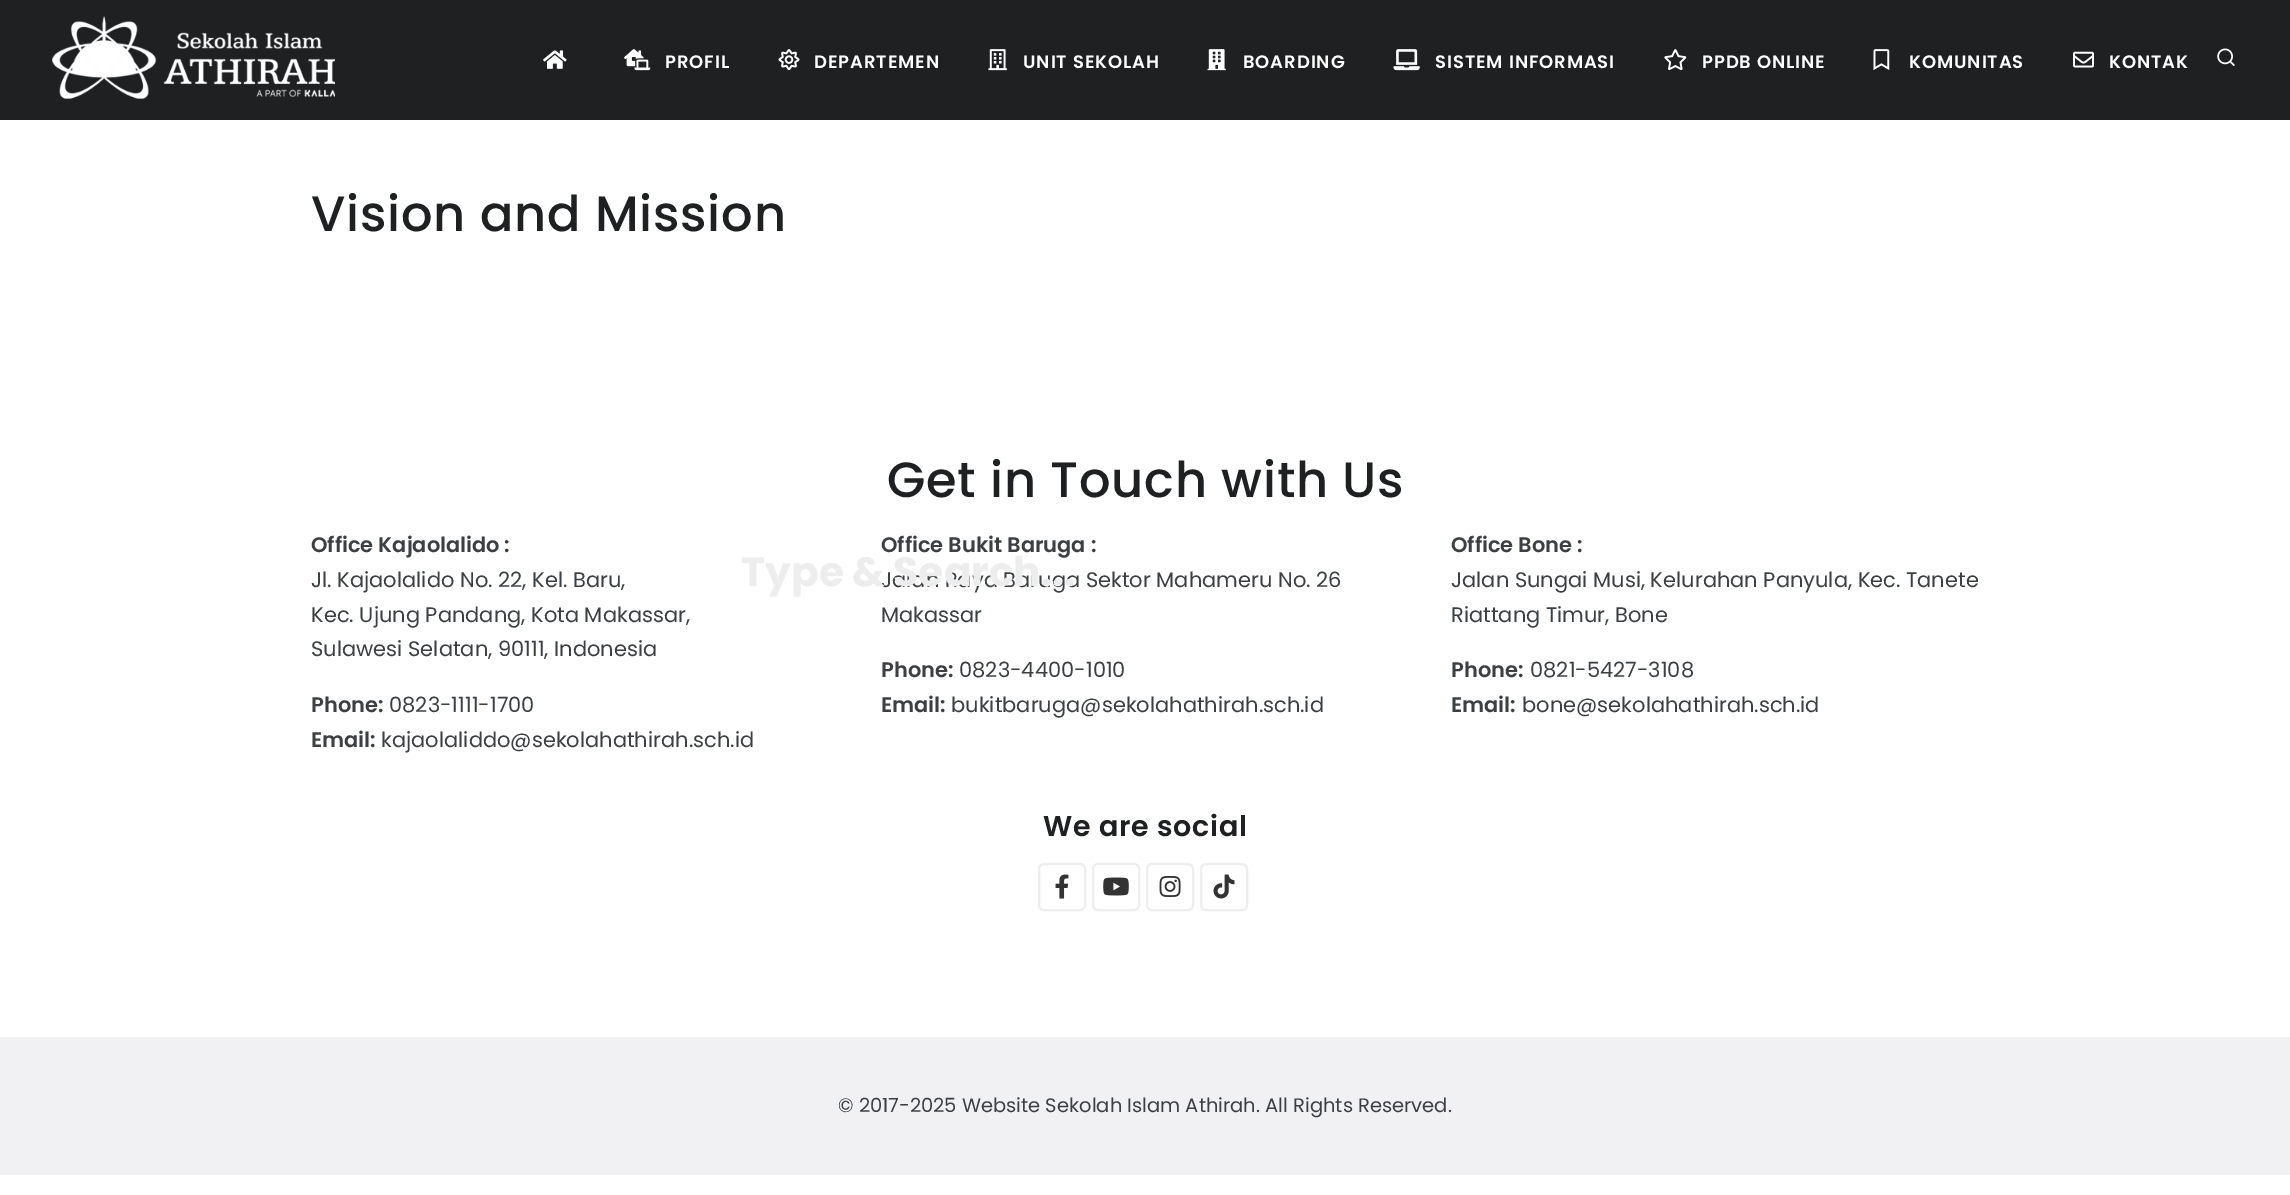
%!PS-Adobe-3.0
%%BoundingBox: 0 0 2290 1195
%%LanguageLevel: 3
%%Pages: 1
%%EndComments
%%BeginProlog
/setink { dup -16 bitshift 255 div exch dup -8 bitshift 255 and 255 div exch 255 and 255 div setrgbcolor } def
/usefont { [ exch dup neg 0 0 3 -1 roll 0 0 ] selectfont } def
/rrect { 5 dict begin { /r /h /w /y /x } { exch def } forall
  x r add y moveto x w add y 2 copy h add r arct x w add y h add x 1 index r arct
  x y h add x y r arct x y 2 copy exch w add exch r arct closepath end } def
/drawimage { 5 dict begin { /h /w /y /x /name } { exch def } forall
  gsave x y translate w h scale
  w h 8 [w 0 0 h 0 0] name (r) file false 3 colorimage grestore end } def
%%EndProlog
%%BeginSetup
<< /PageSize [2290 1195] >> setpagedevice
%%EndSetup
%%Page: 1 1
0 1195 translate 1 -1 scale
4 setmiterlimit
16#FFFFFF setink
0 0 2290 1195 rectfill
/Poppins-Medium 49.5 usefont
16#1E2022 setink
311 231 moveto 0.75 0 (Vision and Mission) ashow
0 0 2290 120 rectfill
(img1.raw) 52 16 283 83 drawimage
(img2.raw) 543 50 24 19 drawimage
(img3.raw) 624 49 27 22 drawimage
/Poppins-SemiBold 18 usefont
16#FFFFFF setink
665 68 moveto 0.9 0 (PROFIL) ashow
(img4.raw) 778 49 22 22 drawimage
814 68 moveto 0.9 0 (DEPARTEMEN) ashow
(img5.raw) 988 49 19 22 drawimage
1023 68 moveto 0.9 0 (UNIT SEKOLAH) ashow
(img6.raw) 1207 49 19 22 drawimage
1243 68 moveto 0.9 0 (BOARDING) ashow
(img7.raw) 1393 49 27 22 drawimage
1435 68 moveto 0.9 0 (SISTEM INFORMASI) ashow
(img8.raw) 1664 49 23 22 drawimage
1702 68 moveto 0.9 0 (PPDB ONLINE) ashow
(img9.raw) 1873 49 17 21 drawimage
1909 68 moveto 0.9 0 (KOMUNITAS) ashow
(img10.raw) 2073 51 21 17 drawimage
2109 68 moveto 0.9 0 (KONTAK) ashow
(img11.raw) 2217 48 18 18 drawimage
/Poppins-Regular 21 usefont
16#3C4043 setink
881 587 moveto (Jalan Raya Baruga Sektor Mahameru No. 26) show
/Poppins-Bold 40.75 usefont
16#EDEDEE setink
741 586 moveto (Type & Search...) show
/Poppins-Medium 49.5 usefont
16#1E2022 setink
887 497 moveto 0.75 0 (Get in Touch with Us) ashow
/Poppins-SemiBold 21 usefont
16#3C4043 setink
311 552 moveto (Office Kajaolalido :) show
/Poppins-Regular 21 usefont
[
    [(Jl. Kajaolalido No. 22, Kel. Baru,) 311 587]
    [(Kec. Ujung Pandang, Kota Makassar,) 311 622]
    [(Sulawesi Selatan, 90111, Indonesia) 311 656]
] { aload pop moveto show } forall
/Poppins-SemiBold 21 usefont
311 712 moveto (Phone:) show
/Poppins-Regular 21 usefont
389 712 moveto (0823-1111-1700) show
/Poppins-SemiBold 21 usefont
311 747 moveto (Email:) show
/Poppins-Regular 21 usefont
381 747 moveto (kajaolaliddo@sekolahathirah.sch.id) show
/Poppins-SemiBold 21 usefont
881 552 moveto (Office Bukit Baruga :) show
/Poppins-Regular 21 usefont
881 622 moveto (Makassar) show
/Poppins-SemiBold 21 usefont
881 677 moveto (Phone:) show
/Poppins-Regular 21 usefont
959 677 moveto (0823-4400-1010) show
/Poppins-SemiBold 21 usefont
881 712 moveto (Email:) show
/Poppins-Regular 21 usefont
951 712 moveto (bukitbaruga@sekolahathirah.sch.id) show
/Poppins-SemiBold 21 usefont
1451 552 moveto (Office Bone :) show
/Poppins-Regular 21 usefont
1451 587 moveto (Jalan Sungai Musi, Kelurahan Panyula, Kec. Tanete) show
1451 622 moveto (Riattang Timur, Bone) show
/Poppins-SemiBold 21 usefont
1451 677 moveto (Phone:) show
/Poppins-Regular 21 usefont
1530 677 moveto (0821-5427-3108) show
/Poppins-SemiBold 21 usefont
1451 712 moveto (Email:) show
/Poppins-Regular 21 usefont
1522 712 moveto (bone@sekolahathirah.sch.id) show
/Poppins-SemiBold 28.5 usefont
16#1E2022 setink
1043 836 moveto 0.75 0 (We are social) ashow
16#EEEEEE setink
2 setlinewidth
1039 864 46 46 5 rrect stroke
(img12.raw) 1055 874 14 25 drawimage
1093 864 46 46 5 rrect stroke
(img13.raw) 1103 877 26 19 drawimage
1147 864 46 46 5 rrect stroke
(img14.raw) 1159 876 22 21 drawimage
1201 864 46 46 5 rrect stroke
(img15.raw) 1213 874 22 25 drawimage
16#F1F1F3 setink
0 1037 2290 138 rectfill
/Poppins-Regular 19.5 usefont
16#3C4043 setink
838 1112 moveto (© 2017-2025 Website Sekolah Islam Athirah. All Rights Reserved.) show
showpage
%%EOF
